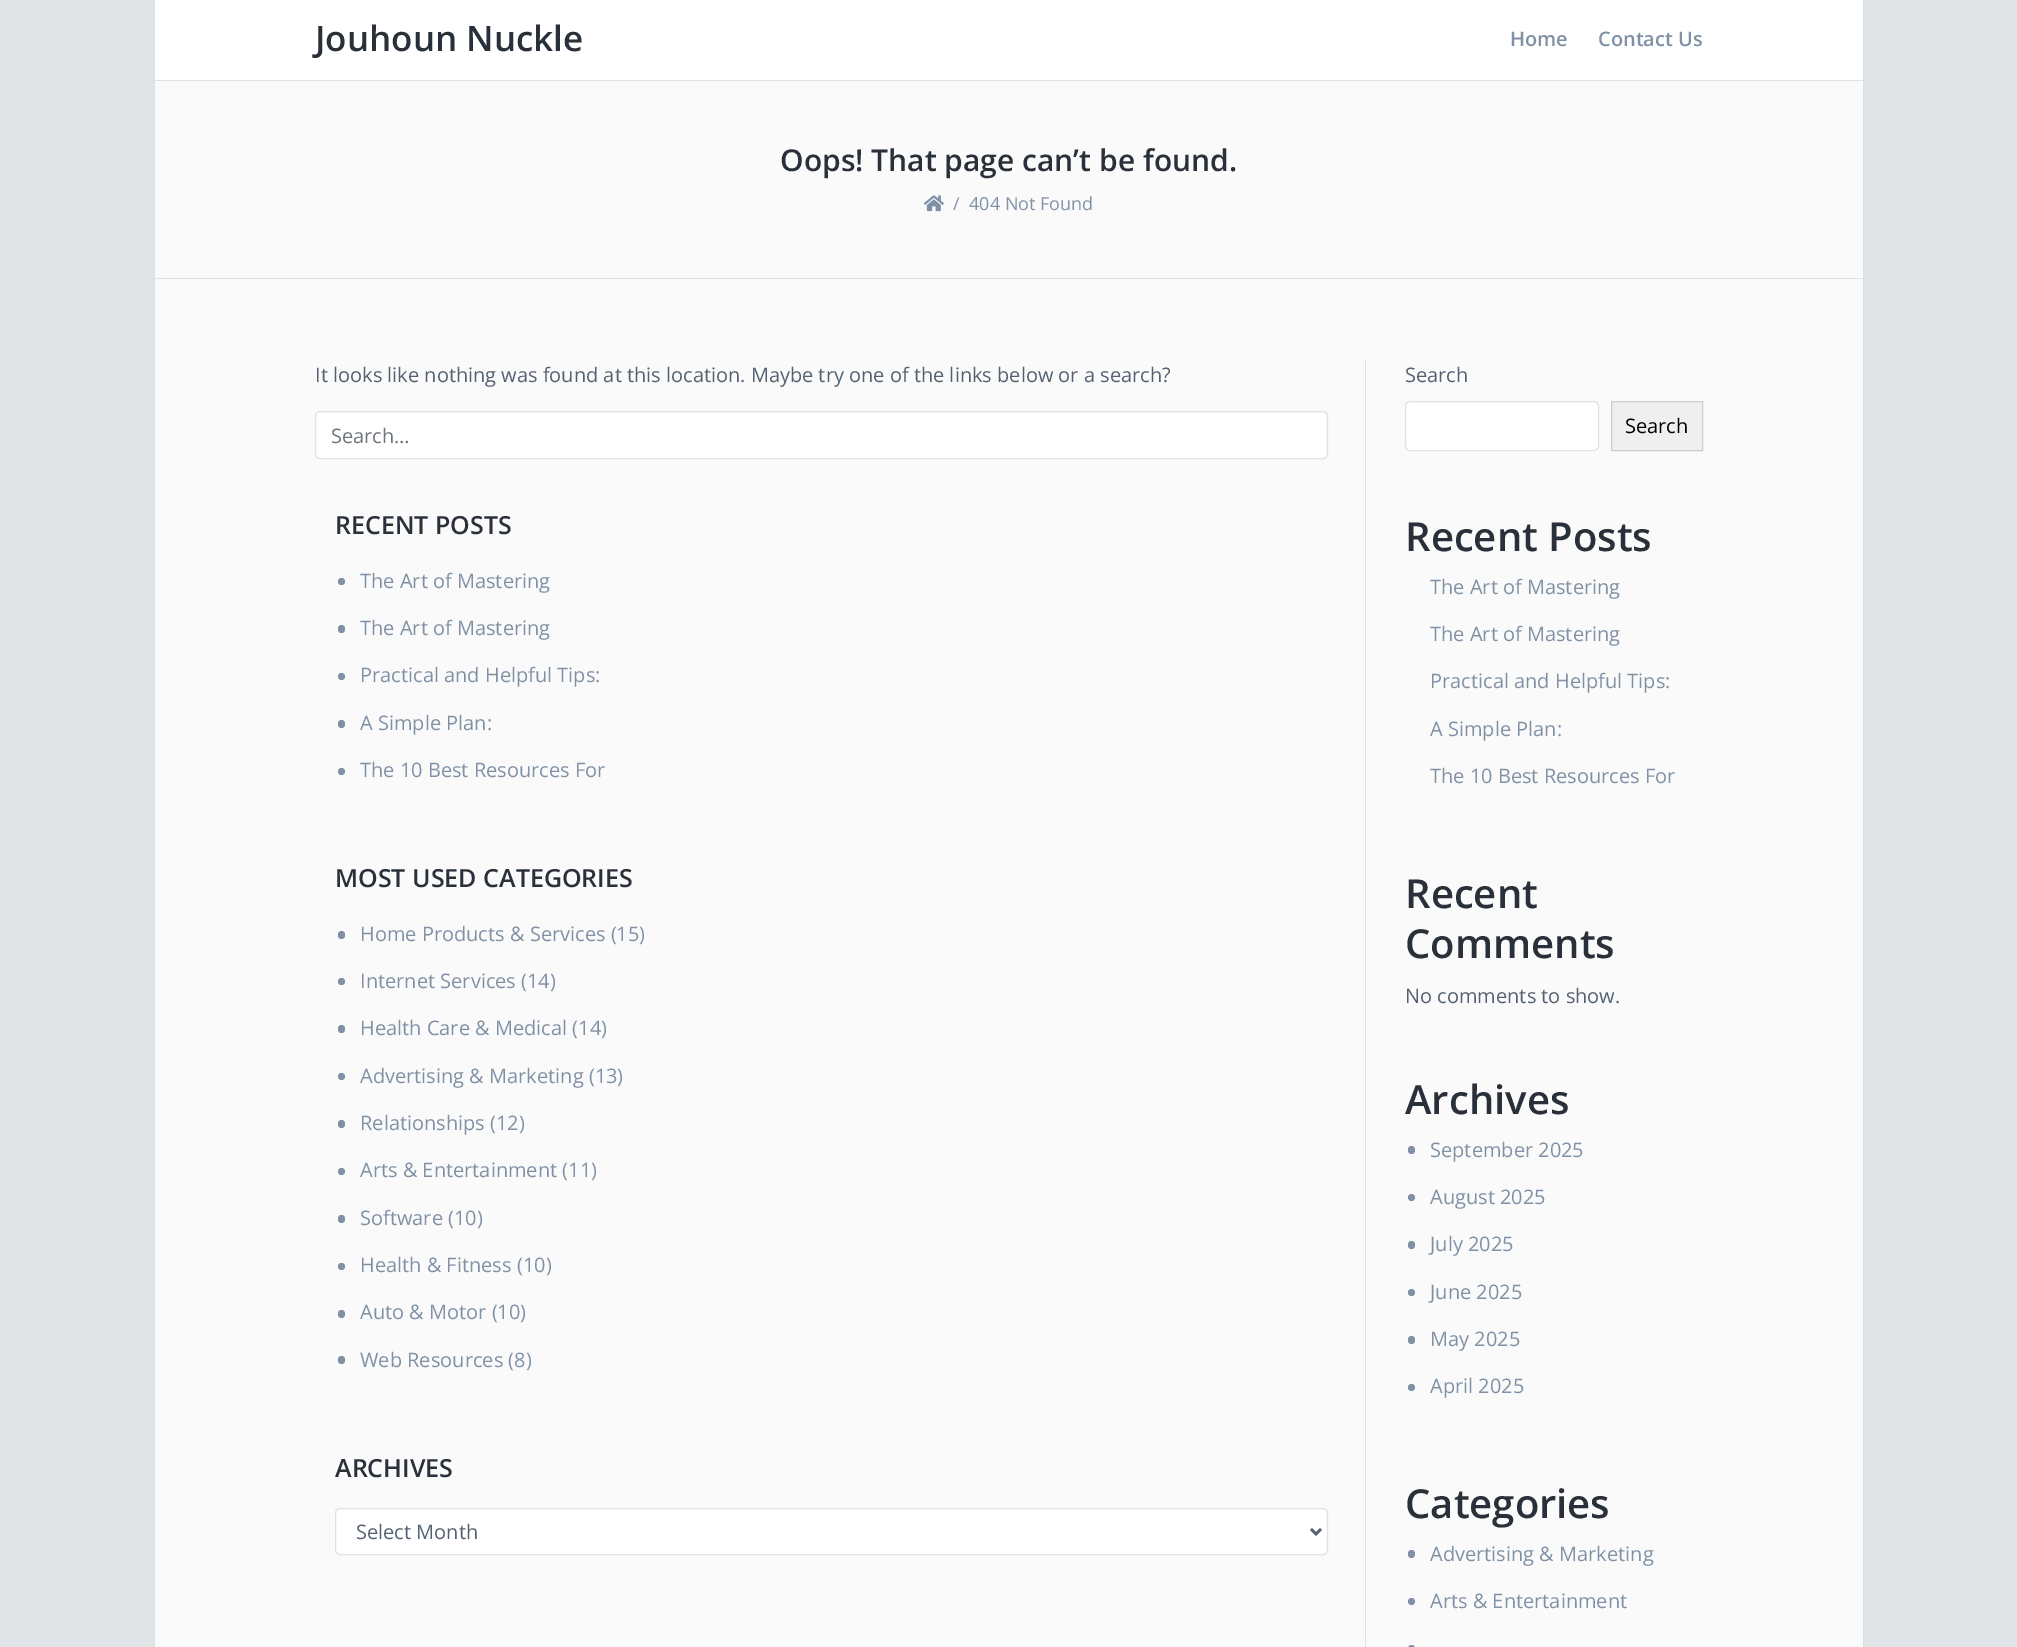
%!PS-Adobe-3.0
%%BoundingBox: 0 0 2017 1647
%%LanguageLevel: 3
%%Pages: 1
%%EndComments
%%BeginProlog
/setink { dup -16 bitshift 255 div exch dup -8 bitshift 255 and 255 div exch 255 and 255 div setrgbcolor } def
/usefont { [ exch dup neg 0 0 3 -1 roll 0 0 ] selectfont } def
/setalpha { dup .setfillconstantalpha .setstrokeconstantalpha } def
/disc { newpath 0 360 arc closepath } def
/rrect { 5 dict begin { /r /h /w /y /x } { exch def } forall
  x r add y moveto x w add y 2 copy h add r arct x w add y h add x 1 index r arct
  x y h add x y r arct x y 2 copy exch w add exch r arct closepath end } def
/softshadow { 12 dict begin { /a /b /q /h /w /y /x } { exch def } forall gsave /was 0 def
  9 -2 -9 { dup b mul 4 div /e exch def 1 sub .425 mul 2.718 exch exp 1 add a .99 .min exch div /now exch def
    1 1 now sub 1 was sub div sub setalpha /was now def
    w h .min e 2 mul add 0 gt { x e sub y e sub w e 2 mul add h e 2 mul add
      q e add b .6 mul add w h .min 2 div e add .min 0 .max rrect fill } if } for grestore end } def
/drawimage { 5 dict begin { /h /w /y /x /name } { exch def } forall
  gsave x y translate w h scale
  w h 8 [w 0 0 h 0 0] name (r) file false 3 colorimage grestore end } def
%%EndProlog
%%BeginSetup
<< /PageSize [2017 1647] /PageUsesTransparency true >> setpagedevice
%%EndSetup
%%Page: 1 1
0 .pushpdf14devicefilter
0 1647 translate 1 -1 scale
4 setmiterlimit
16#E2E5E7 setink
0 0 2017 1647 rectfill
16#323232 setink
155 0 1708 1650 0 1 0.1 softshadow
[
    [155 81 1708 1566 16#FAFAFA]
    [155 0 1708 80 16#FFFFFF]
    [155 80 1708 1 16#DBE3E7]
] { aload pop setink rectfill } forall
/OpenSans-SemiBold 35 usefont
16#2A3039 setink
315 51 moveto (Jouhoun Nuckle) show
/OpenSans-SemiBold 20 usefont
16#8091A5 setink
1510 46 moveto (Home) show
1598 46 moveto (Contact Us) show
16#DBE3E7 setink
155 278 1708 1 rectfill
/OpenSans-SemiBold 30 usefont
16#2A3039 setink
780 171 moveto (Oops! That page can’t be found.) show
(img1.raw) 923 195 21 17 drawimage
/OpenSans-Regular 18 usefont
16#8091A5 setink
953 210 moveto (/) show
969 210 moveto (404 Not Found) show
/OpenSans-Regular 20 usefont
16#536171 setink
315 382 moveto (It looks like nothing was found at this location. Maybe try one of the links below or a search?) show
16#FFFFFF setink
316 413 1010 45 4 rrect fill
16#DBE3E7 setink
315.5 411.5 1012 47 4.5 rrect stroke
16#6C757D setink
331 443 moveto (Search…) show
/OpenSans-SemiBold 25 usefont
16#2A3039 setink
335 534 moveto (RECENT POSTS) show
16#8091A5 setink
341.5 581.5 3.5 disc fill
/OpenSans-Regular 20 usefont
360 588 moveto (The Art of Mastering) show
338 625 7 8 3.5 rrect fill
360 635 moveto (The Art of Mastering) show
341.5 676.5 3.5 disc fill
360 682 moveto (Practical and Helpful Tips:) show
338 720 7 8 3.5 rrect fill
360 730 moveto (A Simple Plan:) show
341.5 771.5 3.5 disc fill
360 777 moveto (The 10 Best Resources For) show
/OpenSans-SemiBold 25 usefont
16#2A3039 setink
335 887 moveto (MOST USED CATEGORIES) show
16#8091A5 setink
338 931 7 8 3.5 rrect fill
/OpenSans-Regular 20 usefont
360 941 moveto (Home Products & Services \(15\)) show
341.5 981.5 3.5 disc fill
360 988 moveto (Internet Services \(14\)) show
338 1025 7 8 3.5 rrect fill
360 1035 moveto (Health Care & Medical \(14\)) show
341.5 1076.5 3.5 disc fill
360 1083 moveto (Advertising & Marketing \(13\)) show
338 1120 7 8 3.5 rrect fill
360 1130 moveto (Relationships \(12\)) show
341.5 1171.5 3.5 disc fill
360 1177 moveto (Arts & Entertainment \(11\)) show
338 1215 7 8 3.5 rrect fill
360 1225 moveto (Software \(10\)) show
341.5 1266.5 3.5 disc fill
360 1272 moveto (Health & Fitness \(10\)) show
338 1310 7 8 3.5 rrect fill
360 1319 moveto (Auto & Motor \(10\)) show
338 1356 7 8 3.5 rrect fill
360 1367 moveto (Web Resources \(8\)) show
/OpenSans-SemiBold 25 usefont
16#2A3039 setink
335 1477 moveto (ARCHIVES) show
16#FFFFFF setink
336 1509 990 45 4 rrect fill
16#DBE3E7 setink
335.5 1508.5 992 46 4.5 rrect stroke
16#536171 setink
2.5 setlinewidth
1311 1529 moveto 1316 1534 lineto 1321 1529 lineto stroke
/OpenSans-Regular 20 usefont
356 1539 moveto (Select Month) show
16#DBE3E7 setink
1365 359 1 1288 rectfill
16#536171 setink
1405 382 moveto (Search) show
16#FFFFFF setink
1406 403 192 47 4 rrect fill
16#DBE3E7 setink
1 setlinewidth
1405.5 401.5 193 49 4.5 rrect stroke
16#EFEFEF setink
1611.5 401.5 moveto 1702.5 401.5 lineto 1702.5 450.5 lineto 1611.5 450.5 lineto closepath gsave fill grestore
16#CCCCCC setink
stroke
16#000000 setink
1625 433 moveto (Search) show
/OpenSans-SemiBold 40 usefont
16#2A3039 setink
1405 551 moveto (Recent Posts) show
/OpenSans-Regular 20 usefont
16#8091A5 setink
[
    [(The Art of Mastering) 1430 594]
    [(The Art of Mastering) 1430 641]
    [(Practical and Helpful Tips:) 1430 688]
    [(A Simple Plan:) 1430 736]
    [(The 10 Best Resources For) 1430 783]
] { aload pop moveto show } forall
/OpenSans-SemiBold 40 usefont
16#2A3039 setink
1405 908 moveto (Recent) show
1405 958 moveto (Comments) show
/OpenSans-Regular 20 usefont
16#536171 setink
1405 1003 moveto (No comments to show.) show
/OpenSans-SemiBold 40 usefont
16#2A3039 setink
1405 1114 moveto (Archives) show
16#8091A5 setink
1408 1146 7 8 3.5 rrect fill
/OpenSans-Regular 20 usefont
1430 1157 moveto (September 2025) show
1411.5 1197.5 3.5 disc fill
1430 1204 moveto (August 2025) show
1408 1241 7 8 3.5 rrect fill
1430 1251 moveto (July 2025) show
1411.5 1292.5 3.5 disc fill
1430 1299 moveto (June 2025) show
1408 1336 7 8 3.5 rrect fill
1430 1346 moveto (May 2025) show
1411.5 1387.5 3.5 disc fill
1430 1393 moveto (April 2025) show
/OpenSans-SemiBold 40 usefont
16#2A3039 setink
1405 1518 moveto (Categories) show
16#8091A5 setink
1408 1550 7 8 3.5 rrect fill
/OpenSans-Regular 20 usefont
1430 1561 moveto (Advertising & Marketing) show
1411.5 1601.5 3.5 disc fill
1430 1608 moveto (Arts & Entertainment) show
1408 1645 7 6 3.5 rrect fill
.poppdf14devicefilter showpage
%%EOF
